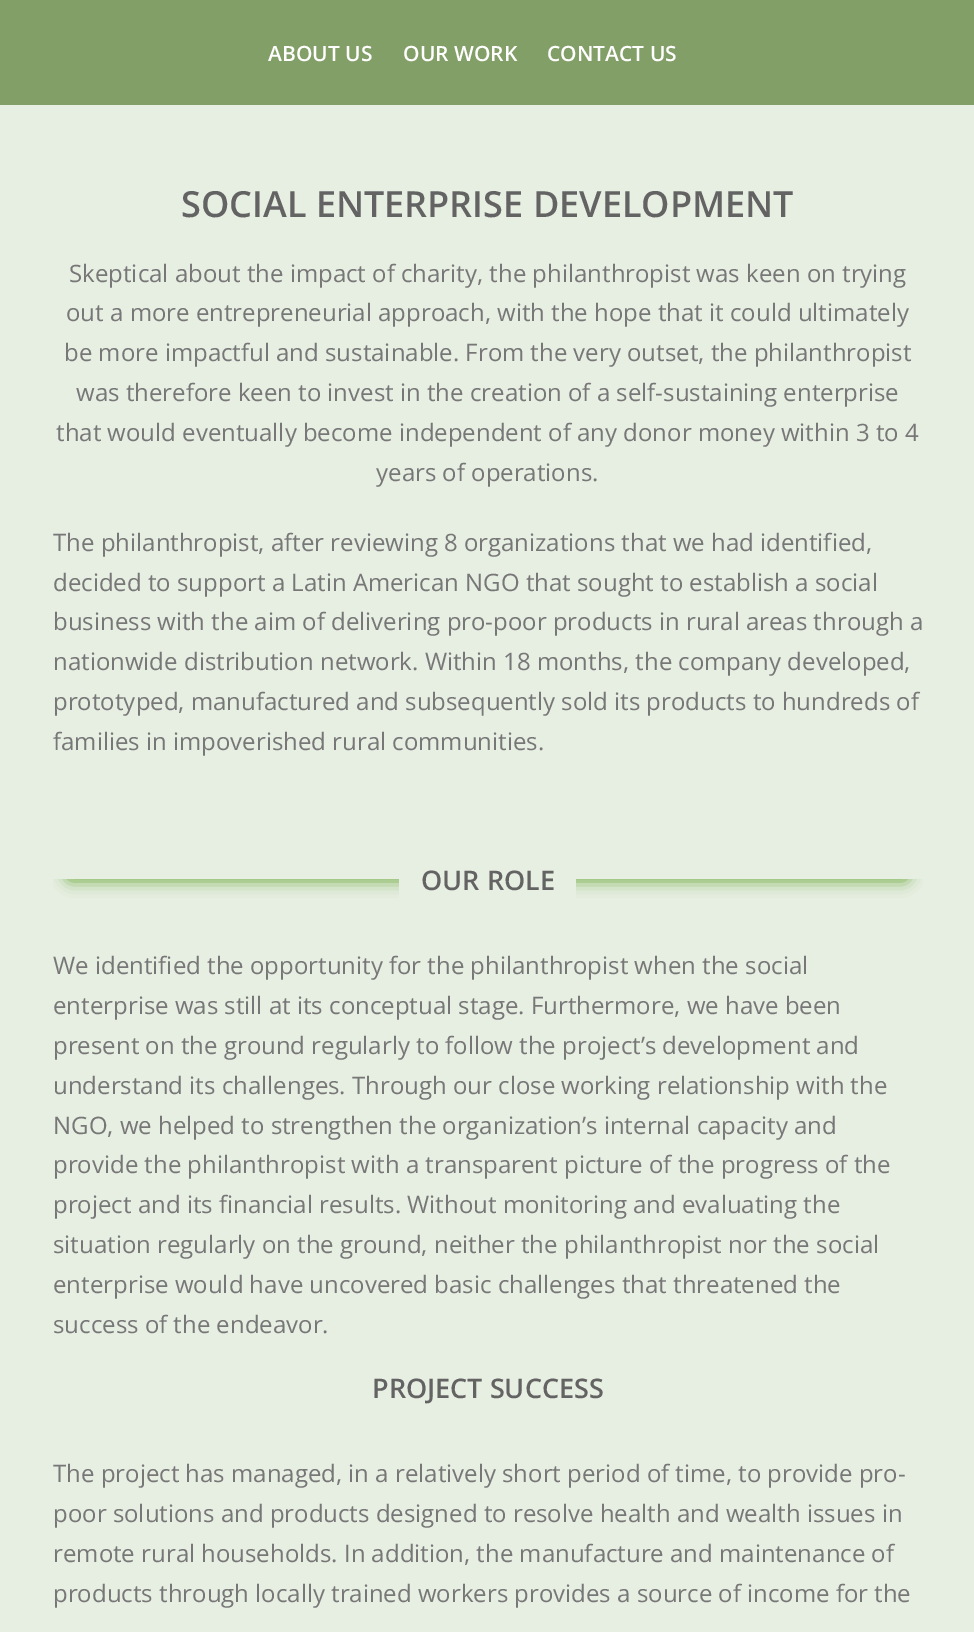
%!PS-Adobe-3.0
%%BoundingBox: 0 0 974 1632
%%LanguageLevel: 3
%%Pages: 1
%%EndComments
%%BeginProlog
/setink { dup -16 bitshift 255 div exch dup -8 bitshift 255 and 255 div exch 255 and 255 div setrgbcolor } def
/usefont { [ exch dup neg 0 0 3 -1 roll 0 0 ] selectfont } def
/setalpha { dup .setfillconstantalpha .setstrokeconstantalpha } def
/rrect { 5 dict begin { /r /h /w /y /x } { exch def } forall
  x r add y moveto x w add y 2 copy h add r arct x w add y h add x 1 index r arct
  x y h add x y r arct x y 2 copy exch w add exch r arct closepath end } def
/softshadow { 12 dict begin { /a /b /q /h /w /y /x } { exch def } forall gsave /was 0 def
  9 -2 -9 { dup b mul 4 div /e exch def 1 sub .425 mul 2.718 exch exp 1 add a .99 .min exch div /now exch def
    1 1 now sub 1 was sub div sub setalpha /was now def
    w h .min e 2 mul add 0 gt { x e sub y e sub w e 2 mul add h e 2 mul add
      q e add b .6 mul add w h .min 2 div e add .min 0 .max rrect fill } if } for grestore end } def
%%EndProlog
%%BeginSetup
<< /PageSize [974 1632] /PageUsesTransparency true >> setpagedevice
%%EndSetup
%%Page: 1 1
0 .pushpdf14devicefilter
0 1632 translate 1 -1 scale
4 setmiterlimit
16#839F68 setink
0 0 974 1632 rectfill
/OpenSans-SemiBold 21 usefont
16#FFFFFF setink
[
    [(ABOUT US) 268 61]
    [(OUR WORK) 403 61]
    [(CONTACT US) 547 61]
] { aload pop moveto show } forall
16#E7EEE2 setink
0 105 974 1527 rectfill
/OpenSans-SemiBold 36 usefont
16#636363 setink
181 217 moveto (SOCIAL ENTERPRISE DEVELOPMENT) show
/OpenSans-Regular 24 usefont
16#777777 setink
[
    [(Skeptical about the impact of charity, the philanthropist was keen on trying) 69 282]
    [(out a more entrepreneurial approach, with the hope that it could ultimately) 66 321]
    [(be more impactful and sustainable. From the very outset, the philanthropist) 64 361]
    [(was therefore keen to invest in the creation of a self-sustaining enterprise) 76 401]
    [(that would eventually become independent of any donor money within 3 to 4) 56 441]
    [(years of operations.) 376 481]
    [(The philanthropist, after reviewing 8 organizations that we had identified,) 53 551]
    [(decided to support a Latin American NGO that sought to establish a social) 53 591]
    [(business with the aim of delivering pro-poor products in rural areas through a) 53 630]
    [(nationwide distribution network. Within 18 months, the company developed,) 53 670]
    [(prototyped, manufactured and subsequently sold its products to hundreds of) 53 710]
    [(families in impoverished rural communities.) 53 750]
] { aload pop moveto show } forall
gsave
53 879 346 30 rectclip
16#6DAB3C setink
66 863 696 18 9 7.5 1 softshadow
grestore
gsave
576 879 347 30 rectclip
16#6DAB3C setink
213 863 696 18 9 7.5 1 softshadow
grestore
/OpenSans-SemiBold 27 usefont
16#636363 setink
421 890 moveto (OUR ROLE) show
/OpenSans-Regular 24 usefont
16#777777 setink
[
    [(We identified the opportunity for the philanthropist when the social) 53 974]
    [(enterprise was still at its conceptual stage. Furthermore, we have been) 53 1014]
    [(present on the ground regularly to follow the project’s development and) 53 1054]
    [(understand its challenges. Through our close working relationship with the) 53 1094]
    [(NGO, we helped to strengthen the organization’s internal capacity and) 53 1134]
    [(provide the philanthropist with a transparent picture of the progress of the) 53 1173]
    [(project and its financial results. Without monitoring and evaluating the) 53 1213]
    [(situation regularly on the ground, neither the philanthropist nor the social) 53 1253]
    [(enterprise would have uncovered basic challenges that threatened the) 53 1293]
    [(success of the endeavor.) 53 1333]
] { aload pop moveto show } forall
/OpenSans-SemiBold 27 usefont
16#636363 setink
372 1398 moveto (PROJECT SUCCESS) show
/OpenSans-Regular 24 usefont
16#777777 setink
[
    [(The project has managed, in a relatively short period of time, to provide pro-) 53 1482]
    [(poor solutions and products designed to resolve health and wealth issues in) 53 1522]
    [(remote rural households. In addition, the manufacture and maintenance of) 53 1562]
    [(products through locally trained workers provides a source of income for the) 53 1602]
] { aload pop moveto show } forall
.poppdf14devicefilter showpage
%%EOF
